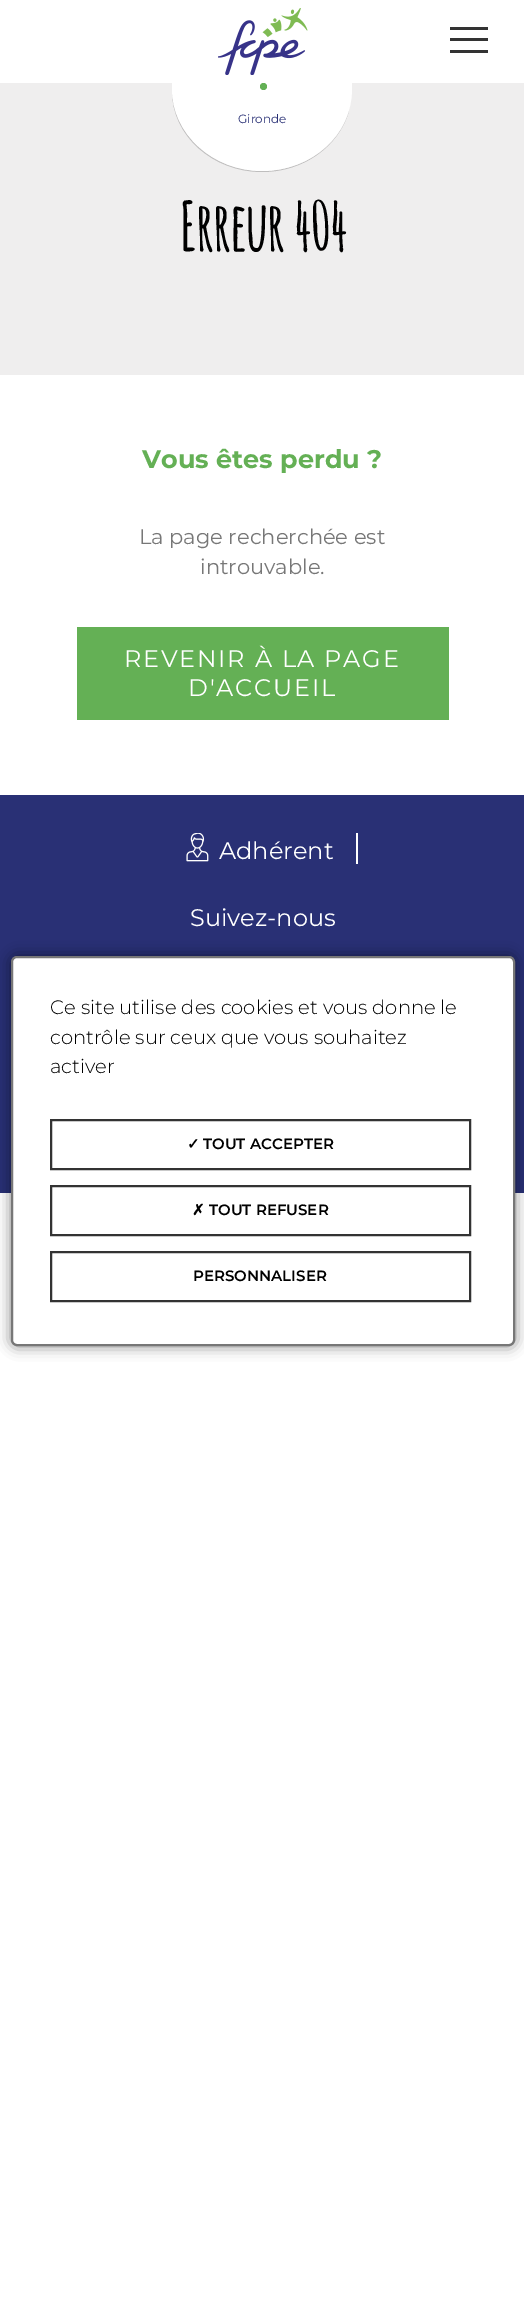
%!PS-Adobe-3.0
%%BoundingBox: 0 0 524 2299
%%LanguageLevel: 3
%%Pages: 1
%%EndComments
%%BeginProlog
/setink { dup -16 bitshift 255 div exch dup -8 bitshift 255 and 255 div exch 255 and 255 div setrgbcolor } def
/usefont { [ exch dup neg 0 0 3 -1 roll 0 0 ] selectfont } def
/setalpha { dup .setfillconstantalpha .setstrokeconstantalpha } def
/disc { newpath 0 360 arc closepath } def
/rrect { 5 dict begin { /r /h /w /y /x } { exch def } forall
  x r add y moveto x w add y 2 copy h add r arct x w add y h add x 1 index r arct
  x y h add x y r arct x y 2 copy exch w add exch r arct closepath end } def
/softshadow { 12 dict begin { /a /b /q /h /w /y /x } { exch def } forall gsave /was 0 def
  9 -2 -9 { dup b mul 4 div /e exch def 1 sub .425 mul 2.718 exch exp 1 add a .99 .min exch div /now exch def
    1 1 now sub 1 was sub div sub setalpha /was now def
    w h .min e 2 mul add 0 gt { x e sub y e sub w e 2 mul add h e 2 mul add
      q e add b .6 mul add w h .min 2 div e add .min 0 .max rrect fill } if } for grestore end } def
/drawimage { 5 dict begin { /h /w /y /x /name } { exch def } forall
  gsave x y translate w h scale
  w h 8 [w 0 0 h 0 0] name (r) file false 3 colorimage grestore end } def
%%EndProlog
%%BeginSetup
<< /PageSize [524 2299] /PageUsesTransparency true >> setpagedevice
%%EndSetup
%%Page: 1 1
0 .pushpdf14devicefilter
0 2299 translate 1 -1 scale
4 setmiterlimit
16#FFFFFF setink
0 0 524 2299 rectfill
[
    [450 27 38 3 16#333333]
    [450 38 38 3 16#333333]
    [450 50 38 3 16#333333]
    [0 83 524 292 16#EFEEEE]
] { aload pop setink rectfill } forall
16#BFBEBE setink
172 9 moveto 172 91 lineto 172 136 213 172 262 172 curveto 304 172 339 146 349 111 curveto 339 146 304 171 262 171 curveto 213 171 172 134 172 89 curveto closepath fill
16#FFFFFF setink
172 8 moveto 352 8 lineto 352 89 lineto 352 134 312 171 262 171 curveto 213 171 172 134 172 89 curveto closepath fill
(img1.raw) 218 8 90 67 drawimage
16#64B055 setink
263.5 86.5 3.5 disc fill
/Montserrat-Regular 12 usefont
16#293075 setink
238 123 moveto (Gironde) show
/AmaticSC-Bold 67.5 usefont
16#000000 setink
179 251 moveto -3 0 (Erreur 404) ashow
/Montserrat-Bold 25.5 usefont
16#64B055 setink
142 468 moveto (Vous êtes perdu ?) show
/Montserrat-Regular 21 usefont
16#777777 setink
139 544 moveto (La page recherchée est) show
200 574 moveto (introuvable.) show
16#64B055 setink
77 627 372 93 rectfill
/Montserrat-Regular 24 usefont
16#FFFFFF setink
124 667 moveto 1.75 0 (REVENIR À LA PAGE) ashow
188 696 moveto 1.75 0 (D'ACCUEIL) ashow
16#293075 setink
0 795 524 398 rectfill
16#FFFFFF setink
356 833 2 31 rectfill
(img2.raw) 186 833 23 29 drawimage
219 859 moveto (Adhérent) show
190 926 moveto (Suivez-nous) show
16#000000 setink
11 956 504 390 6 7 0.5 softshadow
16#FFFFFF setink
12 957 502 388 5 rrect gsave fill grestore
16#777777 setink
2 setlinewidth
stroke
/Montserrat-Light 19.5 usefont
16#000000 setink
[
    [(Ce site utilise des cookies et vous donne le) 50 1014]
    [(contrôle sur ceux que vous souhaitez) 50 1044]
    [(activer) 50 1073]
] { aload pop moveto show } forall
16#333333 setink
51 1120 419 49 rectstroke
/DejaVuSans-Bold 15 usefont
16#000000 setink
187 1149 moveto (✓) show
/Montserrat-SemiBold 15 usefont
203 1149 moveto (TOUT ACCEPTER) show
16#333333 setink
51 1186 419 49 rectstroke
/DejaVuSans-Bold 15 usefont
16#000000 setink
192 1215 moveto (✗) show
/Montserrat-SemiBold 15 usefont
209 1215 moveto (TOUT REFUSER) show
16#333333 setink
51 1252 419 49 rectstroke
16#000000 setink
193 1281 moveto (PERSONNALISER) show
.poppdf14devicefilter showpage
%%EOF
